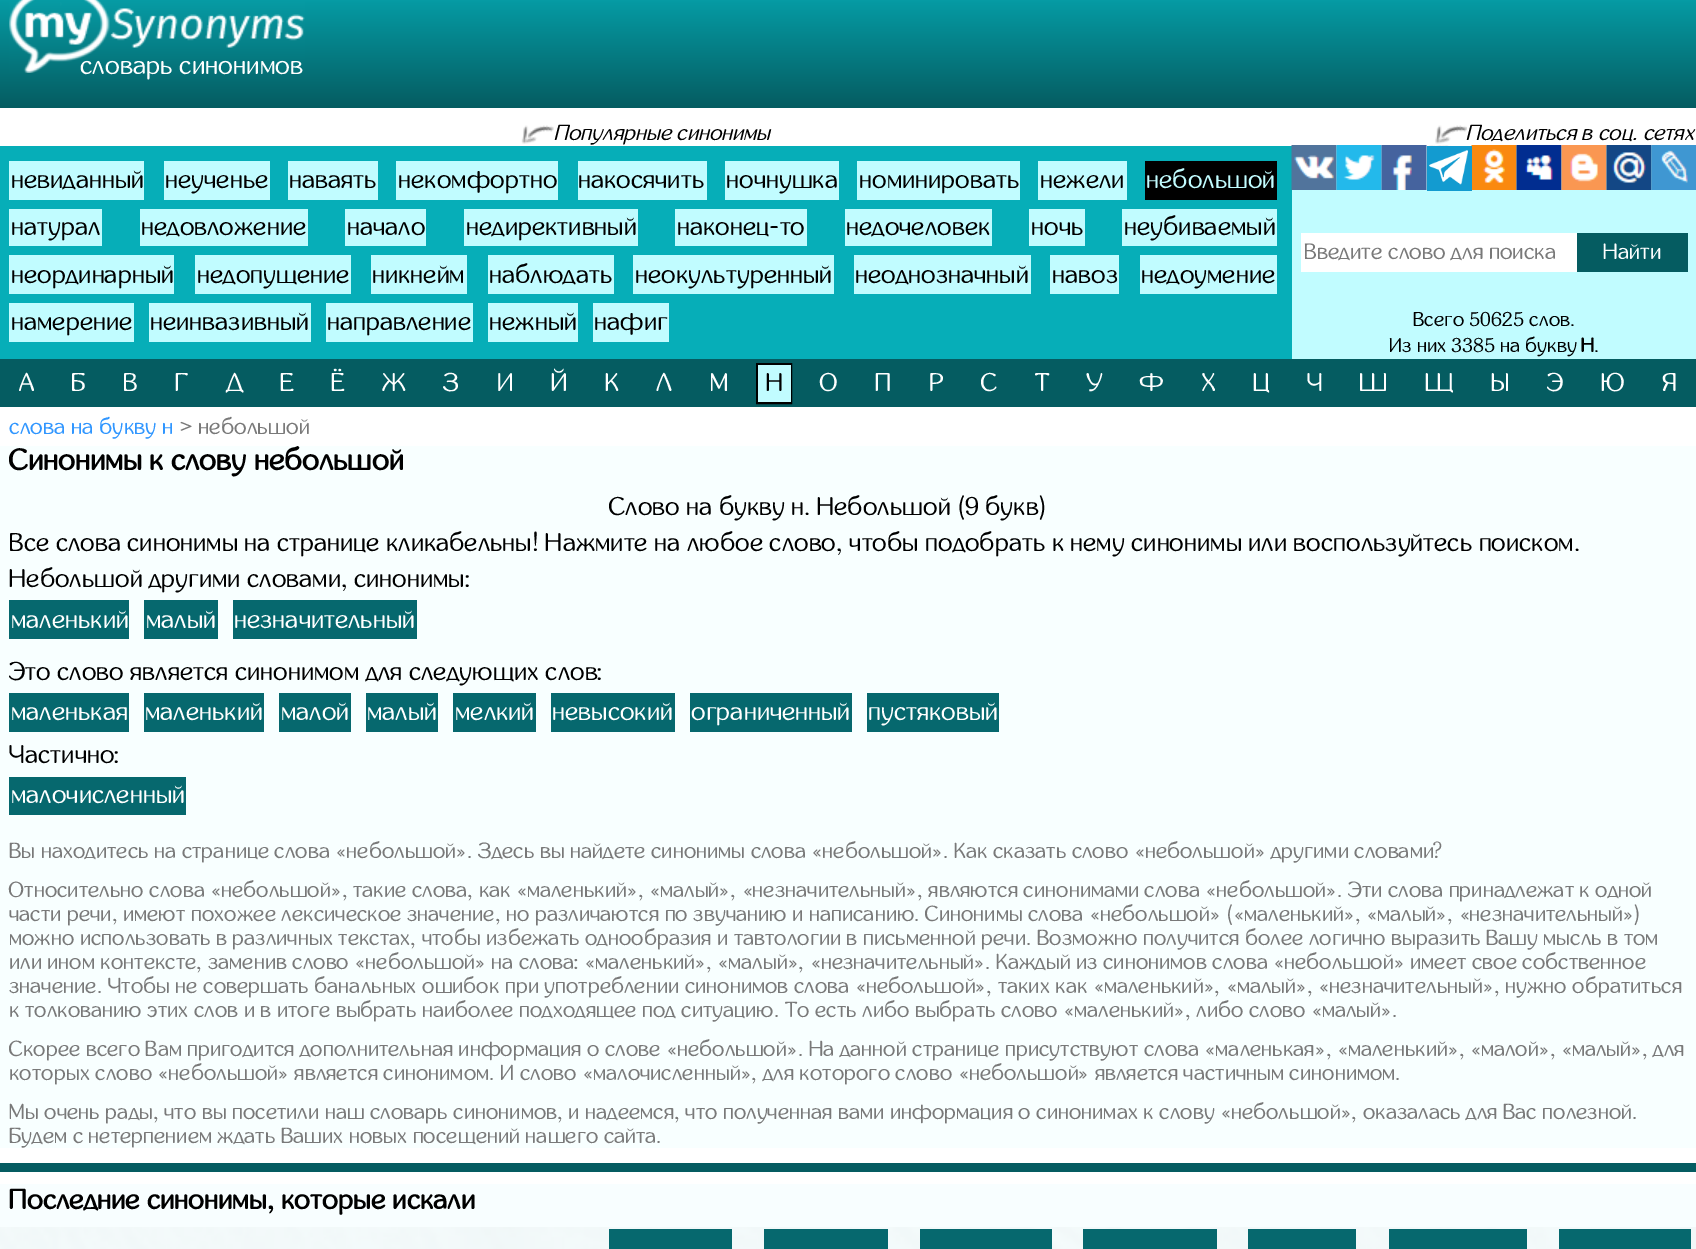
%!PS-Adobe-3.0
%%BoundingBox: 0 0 1696 1249
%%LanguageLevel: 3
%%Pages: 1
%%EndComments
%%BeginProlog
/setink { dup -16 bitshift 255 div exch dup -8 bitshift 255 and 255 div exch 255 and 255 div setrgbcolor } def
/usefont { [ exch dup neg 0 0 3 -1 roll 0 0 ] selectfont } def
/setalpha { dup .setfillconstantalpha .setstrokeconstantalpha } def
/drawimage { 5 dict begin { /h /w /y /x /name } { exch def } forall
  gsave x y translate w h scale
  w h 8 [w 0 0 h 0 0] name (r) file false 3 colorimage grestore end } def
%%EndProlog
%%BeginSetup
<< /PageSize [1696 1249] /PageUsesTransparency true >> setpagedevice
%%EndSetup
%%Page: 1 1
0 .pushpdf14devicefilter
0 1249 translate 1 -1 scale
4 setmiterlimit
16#FFFFFF setink
0 0 1696 1249 rectfill
(img1.raw) 0 1227 1696 22 drawimage
gsave 0 0 moveto 1696 0 lineto 1696 108 lineto 0 108 lineto closepath clip newpath
<< /ShadingType 2 /ColorSpace /DeviceRGB /Coords [848 108 848 -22] /Extend [true true] /Function << /FunctionType 2 /Domain [0 1] /C0 [0.02 0.361 0.38] /C1 [0.024 0.659 0.698] /N 1 >> >> shfill grestore
(img2.raw) 9 0 296 73 drawimage
/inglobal-Regular 26 usefont
80 74 moveto (словарь синонимов) show
(img3.raw) 521 125 33 19 drawimage
/inglobal-Italic 21.75 usefont
16#000000 setink
554 140 moveto (Популярные синонимы) show
(img4.raw) 1435 125 32 19 drawimage
1466 140 moveto (Поделиться в соц. сетях) show
16#06AEB8 setink
0 146 1292 213 rectfill
16#C1FCFF setink
9 161 135 39 rectfill
/inglobal-Regular 25.68 usefont
16#000000 setink
11 188 moveto (невиданный) show
16#C1FCFF setink
164 161 106 39 rectfill
16#000000 setink
165 188 moveto (неученье) show
16#C1FCFF setink
288 161 90 39 rectfill
16#000000 setink
289 188 moveto (наваять) show
16#C1FCFF setink
396 161 162 39 rectfill
16#000000 setink
398 188 moveto (некомфортно) show
16#C1FCFF setink
578 161 129 39 rectfill
16#000000 setink
578 188 moveto (накосячить) show
16#C1FCFF setink
725 161 114 39 rectfill
16#000000 setink
726 188 moveto (ночнушка) show
16#C1FCFF setink
857 161 163 39 rectfill
16#000000 setink
859 188 moveto (номинировать) show
16#C1FCFF setink
1038 161 89 39 rectfill
16#000000 setink
1040 188 moveto (нежели) show
1145 161 132 39 rectfill
16#C1FCFF setink
1146 188 moveto (небольшой) show
9 209 93 37 rectfill
16#000000 setink
11 235 moveto (натурал) show
16#C1FCFF setink
140 209 168 37 rectfill
16#000000 setink
141 235 moveto (недовложение) show
16#C1FCFF setink
345 209 81 37 rectfill
16#000000 setink
347 235 moveto (начало) show
16#C1FCFF setink
464 209 174 37 rectfill
16#000000 setink
466 235 moveto (недирективный) show
16#C1FCFF setink
675 209 132 37 rectfill
16#000000 setink
677 235 moveto (наконец-то) show
16#C1FCFF setink
845 209 147 37 rectfill
16#000000 setink
846 235 moveto (недочеловек) show
16#C1FCFF setink
1029 209 56 37 rectfill
16#000000 setink
1031 235 moveto (ночь) show
16#C1FCFF setink
1122 209 155 37 rectfill
16#000000 setink
1124 235 moveto (неубиваемый) show
16#C1FCFF setink
9 255 165 39 rectfill
16#000000 setink
11 283 moveto (неординарный) show
16#C1FCFF setink
195 255 156 39 rectfill
16#000000 setink
197 283 moveto (недопущение) show
16#C1FCFF setink
371 255 96 39 rectfill
16#000000 setink
372 283 moveto (никнейм) show
16#C1FCFF setink
488 255 126 39 rectfill
16#000000 setink
489 283 moveto (наблюдать) show
16#C1FCFF setink
633 255 201 39 rectfill
16#000000 setink
635 283 moveto (неокультуренный) show
16#C1FCFF setink
854 255 177 39 rectfill
16#000000 setink
855 283 moveto (неоднозначный) show
16#C1FCFF setink
1050 255 69 39 rectfill
16#000000 setink
1052 283 moveto (навоз) show
16#C1FCFF setink
1140 255 137 39 rectfill
16#000000 setink
1141 283 moveto (недоумение) show
16#C1FCFF setink
9 303 125 39 rectfill
16#000000 setink
11 330 moveto (намерение) show
16#C1FCFF setink
149 303 162 39 rectfill
16#000000 setink
150 330 moveto (неинвазивный) show
16#C1FCFF setink
326 303 147 39 rectfill
16#000000 setink
327 330 moveto (направление) show
16#C1FCFF setink
488 303 90 39 rectfill
16#000000 setink
489 330 moveto (нежный) show
16#C1FCFF setink
593 303 76 39 rectfill
16#000000 setink
594 330 moveto (нафиг) show
16#C1FCFF setink
1292 146 404 213 rectfill
(img5.raw) 1291 145 46 45 drawimage
(img6.raw) 1336 145 46 45 drawimage
(img7.raw) 1381 145 46 45 drawimage
(img9.raw) 1471 145 46 45 drawimage
16#139BD0 setink
1427 146 45 45 rectfill
(img8.raw) 1429 145 39 40 drawimage
(img10.raw) 1516 145 46 45 drawimage
(img11.raw) 1561 145 46 45 drawimage
(img12.raw) 1606 145 46 45 drawimage
(img13.raw) 1651 145 45 45 drawimage
16#FFFFFF setink
1301 233 276 39 rectfill
/inglobal-Regular 22.25 usefont
16#797979 setink
1304 259 moveto (Введите слово для поиска) show
16#055C61 setink
1577 233 111 39 rectfill
16#FFFFFF setink
1603 259 moveto (Найти) show
/inglobal-Regular 20 usefont
16#000000 setink
1413 326 moveto (Всего 50625 слов.) show
1389 352 moveto (Из них 3385 на букву) show
/inglobal-Bold 20 usefont
1581 352 moveto (Н) show
/inglobal-Regular 20 usefont
1594 352 moveto (.) show
16#055C61 setink
0 359 1696 48 rectfill
/inglobal-Regular 25.68 usefont
16#FFFFFF setink
[
    [(А) 19 391]
    [(Б) 71 391]
    [(В) 123 391]
    [(Г) 175 391]
    [(Д) 226 391]
    [(Е) 280 391]
    [(Ё) 331 391]
    [(Ж) 382 391]
    [(З) 443 391]
    [(И) 497 391]
    [(Й) 551 391]
    [(К) 605 391]
    [(Л) 656 391]
    [(М) 710 391]
] { aload pop moveto show } forall
16#000000 setink
2 setlinewidth
757 364 34 39 rectstroke
16#C1FCFF setink
758 365 33 37 rectfill
16#000000 setink
766 391 moveto (Н) show
16#FFFFFF setink
[
    [(О) 820 391]
    [(П) 875 391]
    [(Р) 929 391]
    [(С) 981 391]
    [(Т) 1035 391]
    [(У) 1086 391]
    [(Ф) 1140 391]
    [(Х) 1202 391]
    [(Ц) 1253 391]
    [(Ч) 1307 391]
    [(Ш) 1360 391]
    [(Щ) 1425 391]
    [(Ы) 1491 391]
    [(Э) 1547 391]
    [(Ю) 1601 391]
    [(Я) 1662 391]
] { aload pop moveto show } forall
/inglobal-Regular 22.25 usefont
16#3096FF setink
9 434 moveto (слова на букву н) show
16#797979 setink
180 434 moveto (>) show
198 434 moveto (небольшой) show
16#F8FFFF setink
0 446 1696 702 rectfill
/inglobal-Bold 29.75 usefont
16#000000 setink
9 470 moveto (Синонимы к слову небольшой) show
/inglobal-Regular 25.68 usefont
[
    [(Слово на букву н. Небольшой \(9 букв\)) 609 515]
    [(Все слова синонимы на странице кликабельны! Нажмите на любое слово, чтобы подобрать к нему синонимы или воспользуйтесь поиском.) 9 551]
    [(Небольшой другими словами, синонимы:) 9 587]
] { aload pop moveto show } forall
16#06686E setink
9 600 120 39 rectfill
16#FFFFFF setink
11 628 moveto (маленький) show
16#06686E setink
144 600 74 39 rectfill
16#FFFFFF setink
146 628 moveto (малый) show
16#06686E setink
233 600 184 39 rectfill
16#FFFFFF setink
234 628 moveto (незначительный) show
16#000000 setink
9 680 moveto (Это слово является синонимом для следующих слов:) show
16#06686E setink
9 693 120 39 rectfill
16#FFFFFF setink
11 720 moveto (маленькая) show
16#06686E setink
144 693 120 39 rectfill
16#FFFFFF setink
145 720 moveto (маленький) show
16#06686E setink
279 693 72 39 rectfill
16#FFFFFF setink
281 720 moveto (малой) show
16#06686E setink
366 693 72 39 rectfill
16#FFFFFF setink
367 720 moveto (малый) show
16#06686E setink
453 693 83 39 rectfill
16#FFFFFF setink
455 720 moveto (мелкий) show
16#06686E setink
551 693 124 39 rectfill
16#FFFFFF setink
552 720 moveto (невысокий) show
16#06686E setink
690 693 162 39 rectfill
16#FFFFFF setink
691 720 moveto (ограниченный) show
16#06686E setink
867 693 132 39 rectfill
16#FFFFFF setink
868 720 moveto (пустяковый) show
16#000000 setink
9 763 moveto (Частично:) show
16#06686E setink
9 777 177 38 rectfill
16#FFFFFF setink
11 803 moveto (малочисленный) show
/inglobal-Regular 21.83 usefont
16#797979 setink
[
    [(Вы находитесь на странице слова «небольшой». Здесь вы найдете синонимы слова «небольшой».) 9 858]
    [(Как сказать слово «небольшой» другими словами?) 954 858]
    [(Относительно слова «небольшой», такие слова, как «маленький», «малый», «незначительный», являются синонимами слова «небольшой». Эти слова принадлежат к одной) 9 897]
    [(части речи, имеют похожее лексическое значение, но различаются по звучанию и написанию.) 9 921]
    [(Синонимы слова «небольшой» \(«маленький», «малый», «незначительный»\)) 925 921]
    [(можно использовать в различных текстах, чтобы избежать однообразия и тавтологии в письменной речи.) 9 945]
    [(Возможно получится более логично выразить Вашу мысль в том) 1037 945]
    [(или ином контексте, заменив слово «небольшой» на слова: «маленький», «малый», «незначительный».) 9 969]
    [(Каждый из синонимов слова «небольшой» имеет свое собственное) 996 969]
    [(значение. Чтобы не совершать банальных ошибок при употреблении синонимов слова «небольшой», таких как «маленький», «малый», «незначительный», нужно обратиться) 9 993]
    [(к толкованию этих слов и в итоге выбрать наиболее подходящее под ситуацию. То есть либо выбрать слово «маленький», либо слово «малый».) 9 1017]
    [(Скорее всего Вам пригодится дополнительная информация о слове «небольшой». На данной странице присутствуют слова «маленькая», «маленький», «малой», «малый», для) 9 1056]
    [(которых слово «небольшой» является синонимом. И слово «малочисленный», для которого слово «небольшой» является частичным синонимом.) 9 1080]
    [(Мы очень рады, что вы посетили наш словарь синонимов, и надеемся, что полученная вами информация о синонимах к слову «небольшой», оказалась для Вас полезной.) 9 1119]
    [(Будем с нетерпением ждать Ваших новых посещений нашего сайта.) 9 1143]
] { aload pop moveto show } forall
16#055C61 setink
0 1163 1696 9 rectfill
0.6 setalpha
16#F3FEFF setink
0 1184 1696 65 rectfill
/inglobal-Bold 27.8 usefont
1 setalpha
16#000000 setink
9 1209 moveto (Последние синонимы, которые искали) show
[
    [609 1229 123 20 16#06686E]
    [764 1229 124 20 16#06686E]
    [920 1229 132 20 16#06686E]
    [1083 1229 134 20 16#06686E]
    [1248 1229 108 20 16#06686E]
    [1389 1229 138 20 16#06686E]
    [1559 1229 132 20 16#06686E]
] { aload pop setink rectfill } forall
.poppdf14devicefilter showpage
%%EOF
